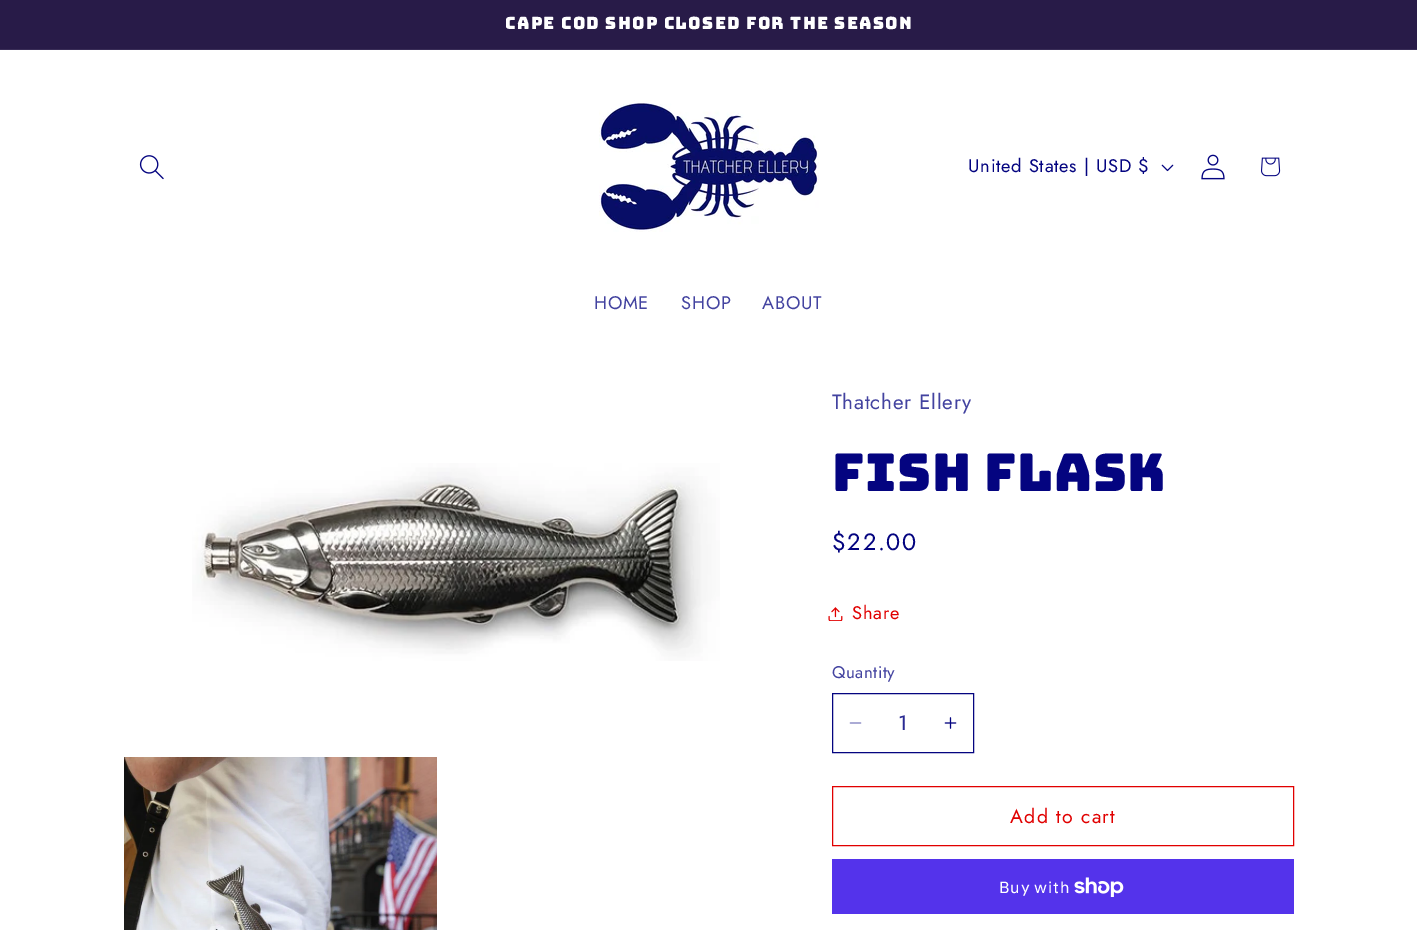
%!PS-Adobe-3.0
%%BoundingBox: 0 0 1417 930
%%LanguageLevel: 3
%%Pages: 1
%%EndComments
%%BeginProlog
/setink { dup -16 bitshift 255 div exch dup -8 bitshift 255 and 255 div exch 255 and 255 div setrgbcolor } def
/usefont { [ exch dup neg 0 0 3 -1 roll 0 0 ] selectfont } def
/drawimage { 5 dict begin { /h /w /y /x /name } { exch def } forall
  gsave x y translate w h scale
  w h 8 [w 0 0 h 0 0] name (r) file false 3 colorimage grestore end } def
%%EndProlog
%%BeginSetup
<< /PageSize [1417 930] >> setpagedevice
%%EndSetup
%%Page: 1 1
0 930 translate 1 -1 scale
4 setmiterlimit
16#FFFFFF setink
0 0 1417 930 rectfill
16#281B48 setink
0 0 1417 49 rectfill
16#392D57 setink
0 49 1417 1 rectfill
/Bungee-Regular 16.9 usefont
16#FFFFFF setink
505 29 moveto 1.3 0 (Cape Cod Shop Closed For The Season) ashow
(img1.raw) 139 155 25 25 drawimage
(img2.raw) 599 100 220 132 drawimage
/Jost-Regular 18.25 usefont
16#040480 setink
968 172 moveto 0.75 0 (United States | USD $) ashow
(img3.raw) 1161 164 13 8 drawimage
(img4.raw) 1201 154 24 26 drawimage
(img5.raw) 1261 157 20 20 drawimage
16#4343A0 setink
594 309 moveto 0.75 0 (HOME) ashow
681 309 moveto 0.75 0 (SHOP) ashow
762 309 moveto 0.75 0 (ABOUT) ashow
(img6.raw) 192 463 528 198 drawimage
(img7.raw) 124 757 313 173 drawimage
/Jost-Regular 20.75 usefont
832 409 moveto 0.75 0 (Thatcher Ellery) ashow
/Bungee-Regular 52 usefont
16#040480 setink
832 491 moveto 0.75 0 (Fish Flask) ashow
/Jost-Regular 23.5 usefont
832 550 moveto 1.75 0 ($22.00) ashow
(img8.raw) 828 607 15 14 drawimage
/Jost-Regular 18.25 usefont
16#E10000 setink
852 619 moveto 0.75 0 (Share) ashow
/Jost-Regular 16.9 usefont
16#4343A0 setink
832 678 moveto 0.5 0 (Quantity) ashow
(img9.raw) 849 722 13 2 drawimage
(img10.raw) 944 717 13 12 drawimage
16#040480 setink
832.5 693.5 141 59 rectstroke
/Jost-Regular 20.75 usefont
16#2A2A93 setink
898 730 moveto (1) show
16#E10000 setink
832.5 786.5 461 59 rectstroke
/Jost-Regular 19.5 usefont
1010 823 moveto 1.3 0 (Add to cart) ashow
16#5433EB setink
832 859 462 55 rectfill
/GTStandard-Regular 16 usefont
16#FFFFFF setink
999 893 moveto 0.75 0 (Buy with) ashow
(img11.raw) 1074 877 50 20 drawimage
showpage
%%EOF
